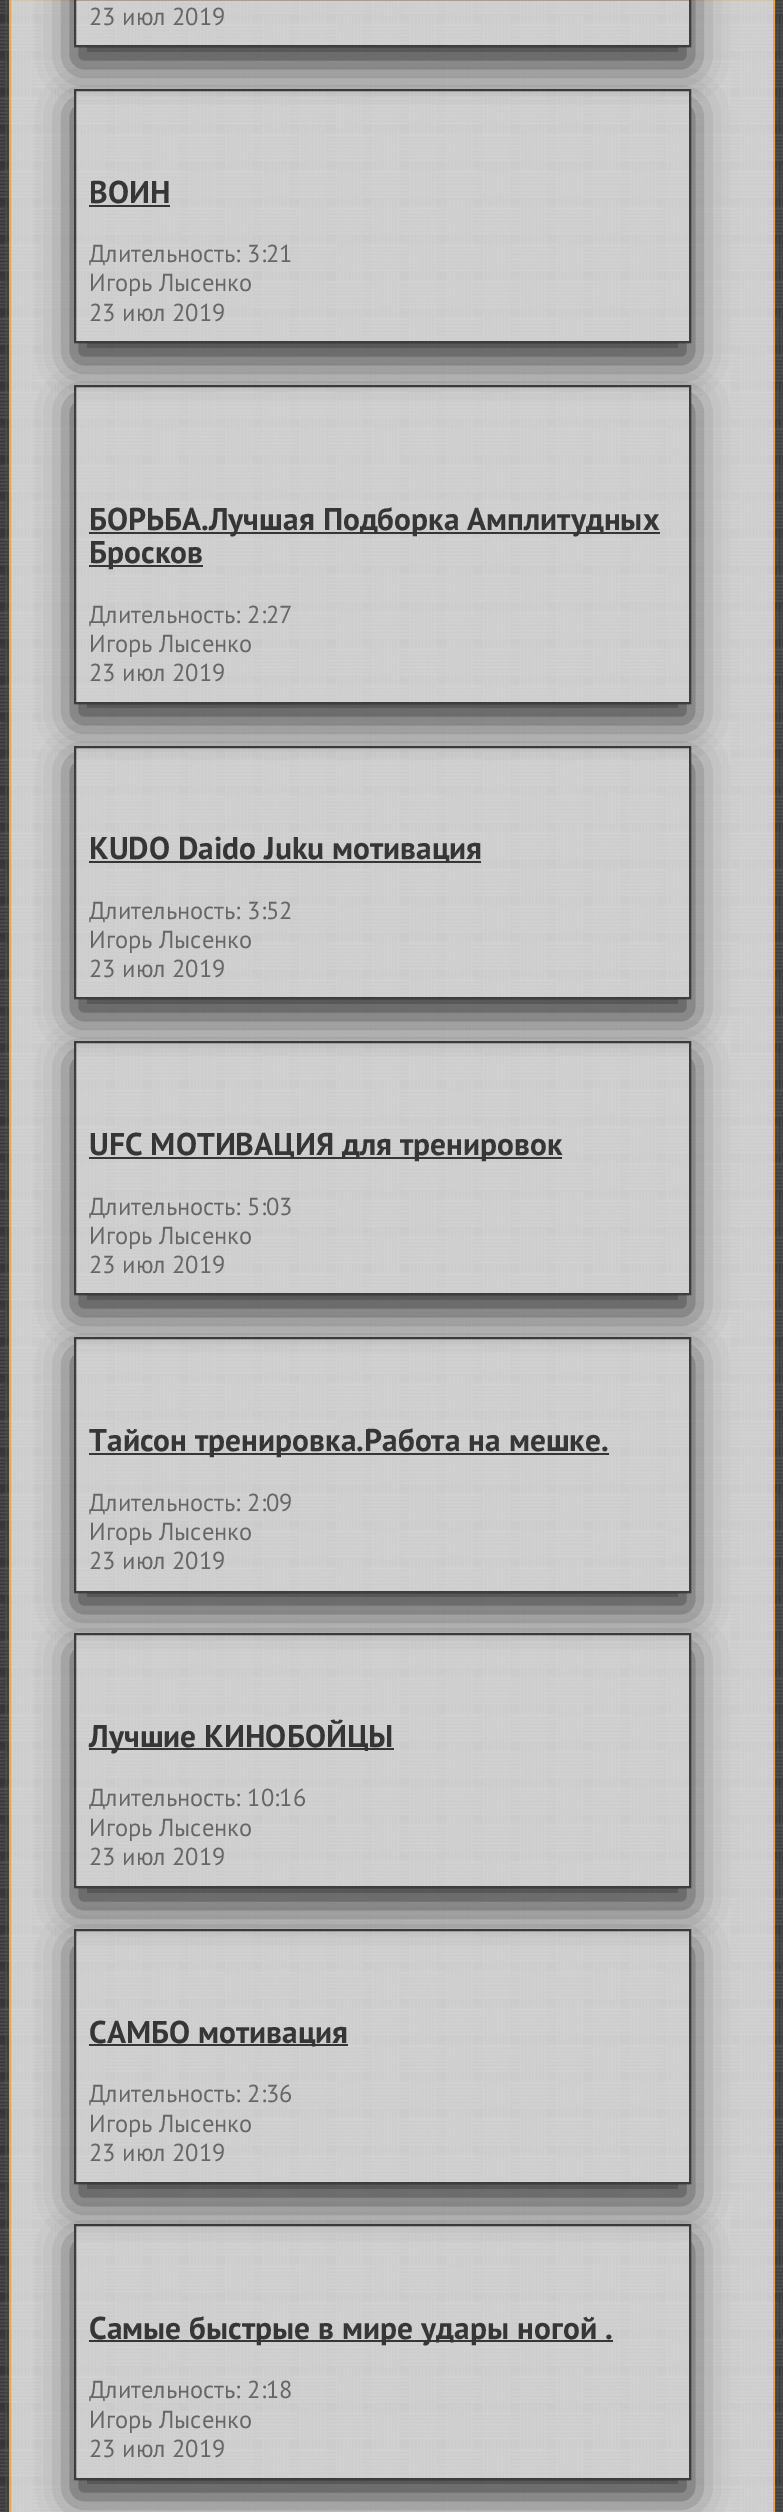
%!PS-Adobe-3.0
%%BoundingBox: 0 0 783 2512
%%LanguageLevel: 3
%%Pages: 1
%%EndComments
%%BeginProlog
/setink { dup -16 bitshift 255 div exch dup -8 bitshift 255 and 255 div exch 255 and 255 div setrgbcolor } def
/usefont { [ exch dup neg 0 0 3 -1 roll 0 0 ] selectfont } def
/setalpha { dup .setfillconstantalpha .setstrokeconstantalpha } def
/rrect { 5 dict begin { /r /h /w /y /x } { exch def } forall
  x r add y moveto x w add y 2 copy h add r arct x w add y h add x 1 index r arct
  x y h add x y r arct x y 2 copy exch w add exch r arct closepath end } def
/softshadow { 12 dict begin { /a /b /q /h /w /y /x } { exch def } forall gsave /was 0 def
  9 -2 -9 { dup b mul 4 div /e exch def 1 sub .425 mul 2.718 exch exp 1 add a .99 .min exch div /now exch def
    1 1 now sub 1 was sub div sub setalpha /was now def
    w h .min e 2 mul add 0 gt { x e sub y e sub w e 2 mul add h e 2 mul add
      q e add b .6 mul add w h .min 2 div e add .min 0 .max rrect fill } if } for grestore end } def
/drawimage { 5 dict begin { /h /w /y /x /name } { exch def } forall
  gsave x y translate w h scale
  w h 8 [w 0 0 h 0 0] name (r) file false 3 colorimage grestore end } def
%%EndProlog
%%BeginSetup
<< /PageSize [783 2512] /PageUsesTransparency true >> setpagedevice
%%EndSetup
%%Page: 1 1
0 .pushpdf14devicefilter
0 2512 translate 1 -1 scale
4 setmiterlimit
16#FFFFFF setink
0 0 783 2512 rectfill
(img1.raw) 0 0 783 2512 drawimage
0.6 setalpha
16#F88901 setink
2 setlinewidth
10 -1 764 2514 rectstroke
gsave
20 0 moveto 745 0 lineto 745 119 lineto 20 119 lineto closepath 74 -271 moveto 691 -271 lineto 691 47 lineto 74 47 lineto closepath eoclip newpath
1 setalpha
16#000000 setink
74 -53 617 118 0 17.5 0.67 softshadow
grestore
0.7 setalpha
16#000000 setink
75 -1 615 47 rectstroke
/PTSans-Regular 24.5 usefont
1 setalpha
16#666666 setink
89 25 moveto (23 июл 2019) show
gsave
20 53 moveto 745 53 lineto 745 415 lineto 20 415 lineto closepath 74 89 moveto 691 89 lineto 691 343 lineto 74 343 lineto closepath eoclip newpath
16#000000 setink
74 107 617 254 0 17.5 0.67 softshadow
grestore
0.7 setalpha
16#000000 setink
75 90 615 252 rectstroke
/PTSans-Bold 31.5 usefont
1 setalpha
16#363636 setink
89 203 moveto (ВОИН) show
89 205 81 2 rectfill
/PTSans-Regular 24.5 usefont
16#666666 setink
[
    [(Длительность: 3:21) 89 262]
    [(Игорь Лысенко) 89 291]
    [(23 июл 2019) 89 321]
] { aload pop moveto show } forall
gsave
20 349 moveto 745 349 lineto 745 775 lineto 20 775 lineto closepath 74 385 moveto 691 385 lineto 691 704 lineto 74 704 lineto closepath eoclip newpath
16#000000 setink
74 403 617 318 0 17.5 0.67 softshadow
grestore
0.7 setalpha
16#000000 setink
75 386 615 317 rectstroke
1 setalpha
16#363636 setink
89 532 571 2 rectfill
/PTSans-Bold 31.5 usefont
89 530 moveto (БОРЬБА.Лучшая Подборка Амплитудных) show
89 565 114 2 rectfill
89 563 moveto (Бросков) show
/PTSans-Regular 24.5 usefont
16#666666 setink
[
    [(Длительность: 2:27) 89 623]
    [(Игорь Лысенко) 89 652]
    [(23 июл 2019) 89 681]
] { aload pop moveto show } forall
gsave
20 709 moveto 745 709 lineto 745 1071 lineto 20 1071 lineto closepath 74 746 moveto 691 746 lineto 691 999 lineto 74 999 lineto closepath eoclip newpath
16#000000 setink
74 763 617 254 0 17.5 0.67 softshadow
grestore
0.7 setalpha
16#000000 setink
75 747 615 251 rectstroke
1 setalpha
16#363636 setink
89 861 392 2 rectfill
/PTSans-Bold 31.5 usefont
89 859 moveto (KUDO Daido Juku мотивация) show
/PTSans-Regular 24.5 usefont
16#666666 setink
[
    [(Длительность: 3:52) 89 919]
    [(Игорь Лысенко) 89 948]
    [(23 июл 2019) 89 977]
] { aload pop moveto show } forall
gsave
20 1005 moveto 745 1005 lineto 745 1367 lineto 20 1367 lineto closepath 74 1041 moveto 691 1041 lineto 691 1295 lineto 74 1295 lineto closepath eoclip newpath
16#000000 setink
74 1059 617 254 0 17.5 0.67 softshadow
grestore
0.7 setalpha
16#000000 setink
75 1042 615 252 rectstroke
1 setalpha
16#363636 setink
89 1157 473 2 rectfill
/PTSans-Bold 31.5 usefont
89 1155 moveto (UFC МОТИВАЦИЯ для тренировок) show
/PTSans-Regular 24.5 usefont
16#666666 setink
[
    [(Длительность: 5:03) 89 1215]
    [(Игорь Лысенко) 89 1244]
    [(23 июл 2019) 89 1273]
] { aload pop moveto show } forall
gsave
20 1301 moveto 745 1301 lineto 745 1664 lineto 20 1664 lineto closepath 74 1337 moveto 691 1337 lineto 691 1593 lineto 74 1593 lineto closepath eoclip newpath
16#000000 setink
74 1355 617 255 0 17.5 0.67 softshadow
grestore
0.7 setalpha
16#000000 setink
75 1338 615 254 rectstroke
1 setalpha
16#363636 setink
89 1453 520 2 rectfill
/PTSans-Bold 31.5 usefont
89 1451 moveto (Тайсон тренировка.Работа на мешке.) show
/PTSans-Regular 24.5 usefont
16#666666 setink
[
    [(Длительность: 2:09) 89 1511]
    [(Игорь Лысенко) 89 1540]
    [(23 июл 2019) 89 1569]
] { aload pop moveto show } forall
gsave
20 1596 moveto 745 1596 lineto 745 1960 lineto 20 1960 lineto closepath 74 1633 moveto 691 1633 lineto 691 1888 lineto 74 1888 lineto closepath eoclip newpath
16#000000 setink
74 1650 617 256 0 17.5 0.67 softshadow
grestore
0.7 setalpha
16#000000 setink
75 1634 615 253 rectstroke
1 setalpha
16#363636 setink
89 1748 305 2 rectfill
/PTSans-Bold 31.5 usefont
89 1747 moveto (Лучшие КИНОБОЙЦЫ) show
/PTSans-Regular 24.5 usefont
16#666666 setink
[
    [(Длительность: 10:16) 89 1806]
    [(Игорь Лысенко) 89 1836]
    [(23 июл 2019) 89 1865]
] { aload pop moveto show } forall
gsave
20 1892 moveto 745 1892 lineto 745 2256 lineto 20 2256 lineto closepath 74 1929 moveto 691 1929 lineto 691 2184 lineto 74 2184 lineto closepath eoclip newpath
16#000000 setink
74 1946 617 256 0 17.5 0.67 softshadow
grestore
0.7 setalpha
16#000000 setink
75 1930 615 253 rectstroke
1 setalpha
16#363636 setink
89 2044 259 2 rectfill
/PTSans-Bold 31.5 usefont
89 2043 moveto (САМБО мотивация) show
/PTSans-Regular 24.5 usefont
16#666666 setink
[
    [(Длительность: 2:36) 89 2102]
    [(Игорь Лысенко) 89 2132]
    [(23 июл 2019) 89 2161]
] { aload pop moveto show } forall
gsave
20 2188 moveto 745 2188 lineto 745 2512 lineto 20 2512 lineto closepath 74 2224 moveto 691 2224 lineto 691 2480 lineto 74 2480 lineto closepath eoclip newpath
16#000000 setink
74 2242 617 255 0 17.5 0.67 softshadow
grestore
0.7 setalpha
16#000000 setink
75 2225 615 254 rectstroke
1 setalpha
16#363636 setink
89 2340 524 2 rectfill
/PTSans-Bold 31.5 usefont
89 2339 moveto (Самые быстрые в мире удары ногой .) show
/PTSans-Regular 24.5 usefont
16#666666 setink
[
    [(Длительность: 2:18) 89 2398]
    [(Игорь Лысенко) 89 2428]
    [(23 июл 2019) 89 2457]
] { aload pop moveto show } forall
.poppdf14devicefilter showpage
%%EOF
